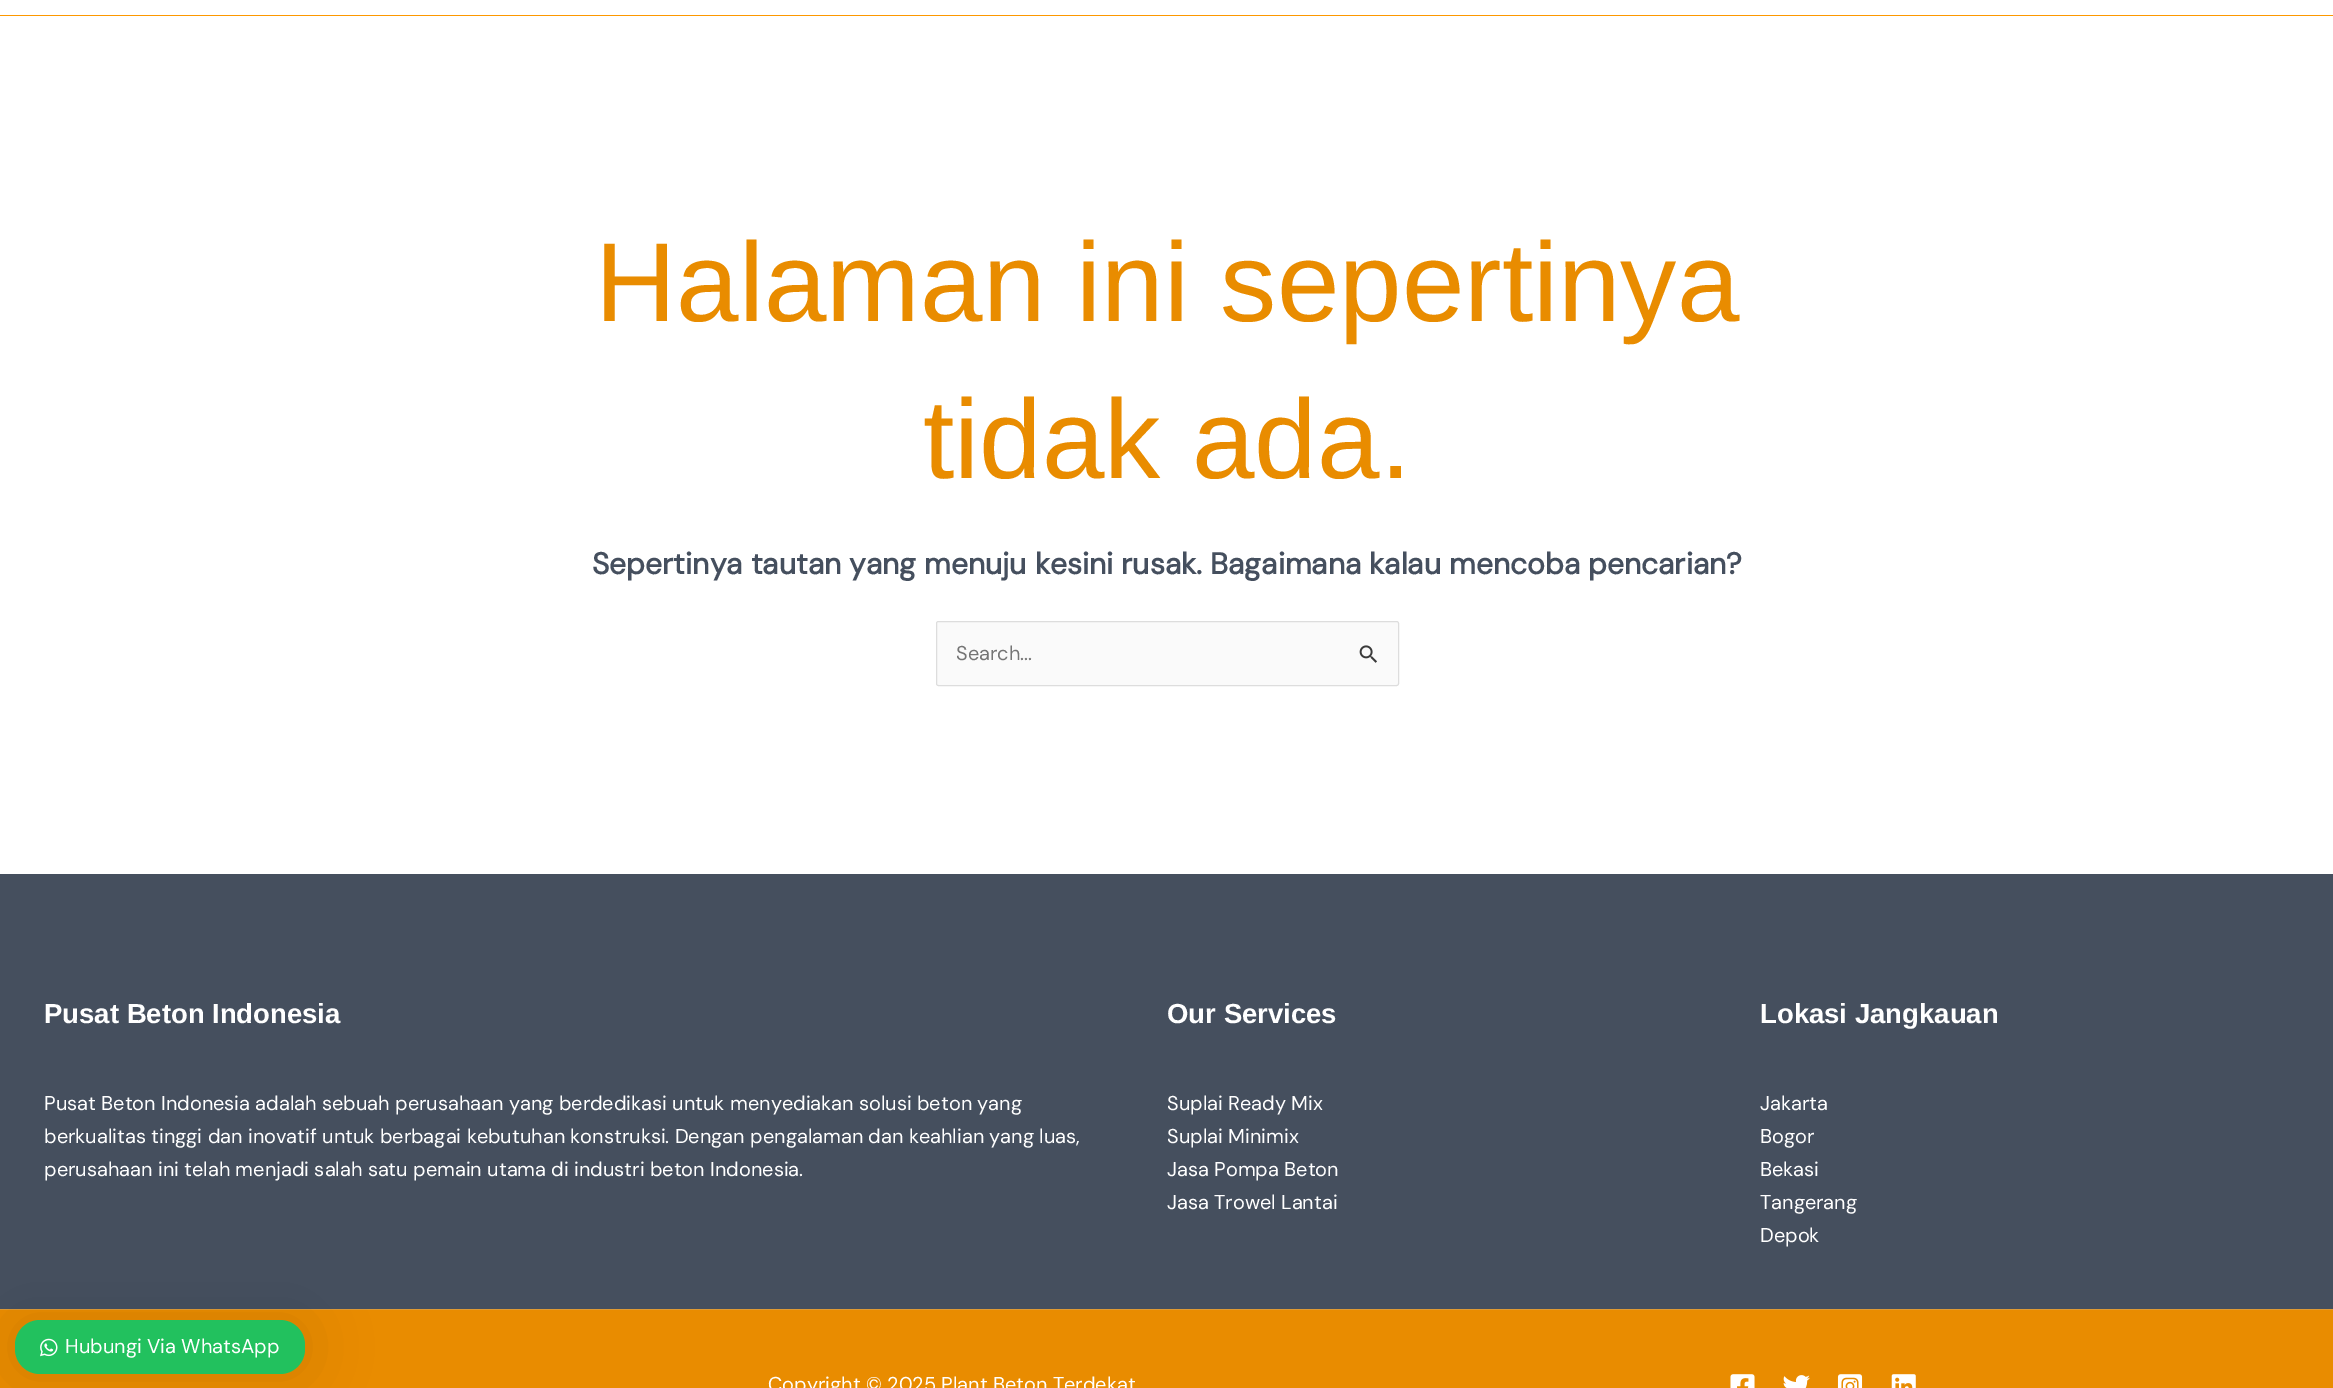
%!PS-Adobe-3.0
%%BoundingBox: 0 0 2333 1388
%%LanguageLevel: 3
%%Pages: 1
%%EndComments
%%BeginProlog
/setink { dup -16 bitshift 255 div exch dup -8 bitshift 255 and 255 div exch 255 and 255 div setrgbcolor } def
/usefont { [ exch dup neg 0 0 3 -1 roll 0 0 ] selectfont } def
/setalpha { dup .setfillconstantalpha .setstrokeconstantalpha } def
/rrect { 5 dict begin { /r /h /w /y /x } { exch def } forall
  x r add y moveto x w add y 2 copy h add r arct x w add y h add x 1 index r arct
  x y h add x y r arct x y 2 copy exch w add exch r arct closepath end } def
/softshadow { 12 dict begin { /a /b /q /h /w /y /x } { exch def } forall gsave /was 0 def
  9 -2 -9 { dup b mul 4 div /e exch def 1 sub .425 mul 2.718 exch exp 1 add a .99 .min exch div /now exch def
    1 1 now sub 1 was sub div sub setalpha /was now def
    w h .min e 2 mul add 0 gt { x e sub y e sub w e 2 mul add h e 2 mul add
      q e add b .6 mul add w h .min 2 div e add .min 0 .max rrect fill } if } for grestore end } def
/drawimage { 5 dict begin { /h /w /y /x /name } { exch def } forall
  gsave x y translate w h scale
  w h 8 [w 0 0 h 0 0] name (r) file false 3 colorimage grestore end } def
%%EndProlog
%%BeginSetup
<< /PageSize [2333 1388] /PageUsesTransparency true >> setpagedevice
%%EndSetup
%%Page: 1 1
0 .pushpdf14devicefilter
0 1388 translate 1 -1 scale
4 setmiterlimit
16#FFFFFF setink
0 0 2333 1388 rectfill
16#FD9800 setink
0 15 2333 1 rectfill
/LiberationSans-Regular 112.5 usefont
16#E98C00 setink
595 321 moveto (Halaman ini sepertinya) show
923 478 moveto (tidak ada.) show
/DMSans-Bold 30 usefont
16#454F5E setink
592 574 moveto (Sepertinya tautan yang menuju kesini rusak. Bagaimana kalau mencoba pencarian?) show
16#FAFAFA setink
936.5 621.5 462 64 2 rrect gsave fill grestore
16#DDDDDD setink
stroke
/DMSans-Regular 20 usefont
16#757575 setink
956 660 moveto (Search...) show
(img1.raw) 1359 645 18 18 drawimage
16#454F5E setink
0 874 2333 435 rectfill
/LiberationSans-Bold 27.5 usefont
16#FFFFFF setink
44 1023 moveto (Pusat Beton Indonesia) show
/DMSans-Regular 20 usefont
[
    [(Pusat Beton Indonesia adalah sebuah perusahaan yang berdedikasi untuk menyediakan solusi beton yang) 44 1110]
    [(berkualitas tinggi dan inovatif untuk berbagai kebutuhan konstruksi. Dengan pengalaman dan keahlian yang luas,) 44 1143]
    [(perusahaan ini telah menjadi salah satu pemain utama di industri beton Indonesia.) 44 1176]
] { aload pop moveto show } forall
/LiberationSans-Bold 27.5 usefont
1167 1023 moveto (Our Services) show
/DMSans-Regular 20 usefont
[
    [(Suplai Ready Mix) 1167 1110]
    [(Suplai Minimix) 1167 1143]
    [(Jasa Pompa Beton) 1167 1176]
    [(Jasa Trowel Lantai) 1167 1209]
] { aload pop moveto show } forall
/LiberationSans-Bold 27.5 usefont
1760 1023 moveto (Lokasi Jangkauan) show
/DMSans-Regular 20 usefont
[
    [(Jakarta) 1760 1110]
    [(Bogor) 1760 1143]
    [(Bekasi) 1760 1176]
    [(Tangerang) 1760 1209]
    [(Depok) 1760 1242]
] { aload pop moveto show } forall
16#E98C00 setink
0 1310 2333 78 rectfill
16#DF9A34 setink
0 1309 2333 1 rectfill
16#FFFFFF setink
768 1391 moveto (Copyright © 2025 Plant Beton Terdekat) show
(img2.raw) 1730 1374 25 14 drawimage
(img3.raw) 1783 1375 27 13 drawimage
(img4.raw) 1837 1374 26 14 drawimage
(img5.raw) 1891 1374 25 14 drawimage
16#000000 setink
15 1320 290 54 25 31 0.1 softshadow
16#22C15E setink
15 1320 290 54 25 rrect fill
(img6.raw) 40 1338 18 19 drawimage
16#FFFFFF setink
65 1353 moveto (Hubungi Via WhatsApp) show
.poppdf14devicefilter showpage
%%EOF
